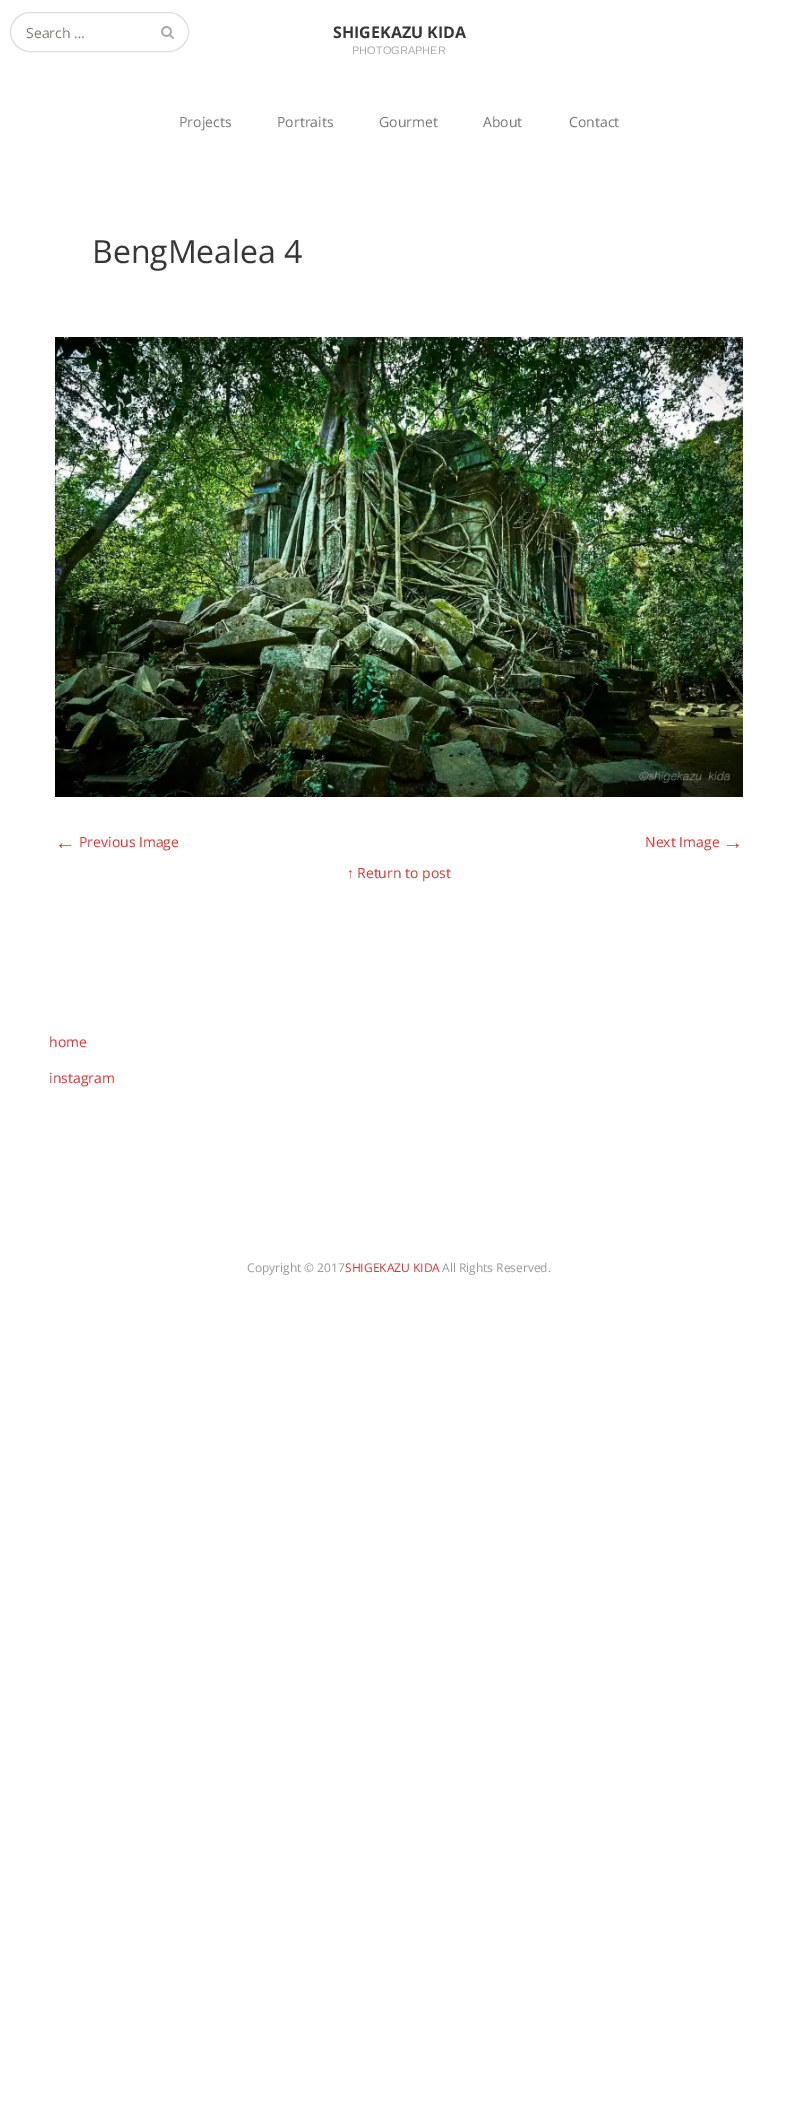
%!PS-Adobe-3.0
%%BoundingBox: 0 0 798 2128
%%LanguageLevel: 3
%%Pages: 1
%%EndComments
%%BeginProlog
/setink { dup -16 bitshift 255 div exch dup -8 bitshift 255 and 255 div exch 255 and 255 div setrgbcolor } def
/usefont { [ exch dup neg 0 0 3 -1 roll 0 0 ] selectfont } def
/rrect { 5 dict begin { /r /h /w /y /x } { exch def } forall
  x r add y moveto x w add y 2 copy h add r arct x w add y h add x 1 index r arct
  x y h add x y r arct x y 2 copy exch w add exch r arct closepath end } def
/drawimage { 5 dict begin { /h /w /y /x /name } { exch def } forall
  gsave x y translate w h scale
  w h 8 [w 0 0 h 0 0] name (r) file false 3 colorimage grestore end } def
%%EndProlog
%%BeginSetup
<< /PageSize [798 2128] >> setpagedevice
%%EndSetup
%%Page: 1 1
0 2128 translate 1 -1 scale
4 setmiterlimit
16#FFFFFF setink
0 0 798 2128 rectfill
16#DDDDDD setink
10.5 12.5 178 39 19.5 rrect stroke
/OpenSans-Regular 14 usefont
16#7D7B6D setink
26 38 moveto (Search …) show
(img1.raw) 161 26 13 13 drawimage
/OpenSans-Bold 16 usefont
16#363636 setink
333 38 moveto (SHIGEKAZU KIDA) show
/LiberationSans-Regular 11 usefont
16#AAAAAA setink
352 54 moveto (PHOTOGRAPHER) show
/OpenSans-Regular 14 usefont
16#777777 setink
[
    [(Projects) 179 127]
    [(Portraits) 277 127]
    [(Gourmet) 379 127]
    [(About) 483 127]
    [(Contact) 569 127]
] { aload pop moveto show } forall
/OpenSans-Regular 32 usefont
16#363636 setink
92 263 moveto (BengMealea 4) show
(img2.raw) 55 337 688 460 drawimage
/LiberationSans-Regular 20 usefont
16#DD3333 setink
55 849 moveto (←) show
/OpenSans-Regular 14 usefont
79 847 moveto (Previous Image) show
645 847 moveto (Next Image) show
/LiberationSans-Regular 20 usefont
723 849 moveto (→) show
/LiberationSans-Regular 14 usefont
347 878 moveto (↑) show
/OpenSans-Regular 14 usefont
[
    [(Return to post) 357 878]
    [(home) 49 1047]
    [(instagram) 49 1083]
] { aload pop moveto show } forall
/OpenSans-Regular 12 usefont
16#999999 setink
247 1272 moveto (Copyright © 2017) show
16#DD3333 setink
345 1272 moveto (SHIGEKAZU KIDA) show
16#999999 setink
442 1272 moveto (All Rights Reserved.) show
showpage
%%EOF
